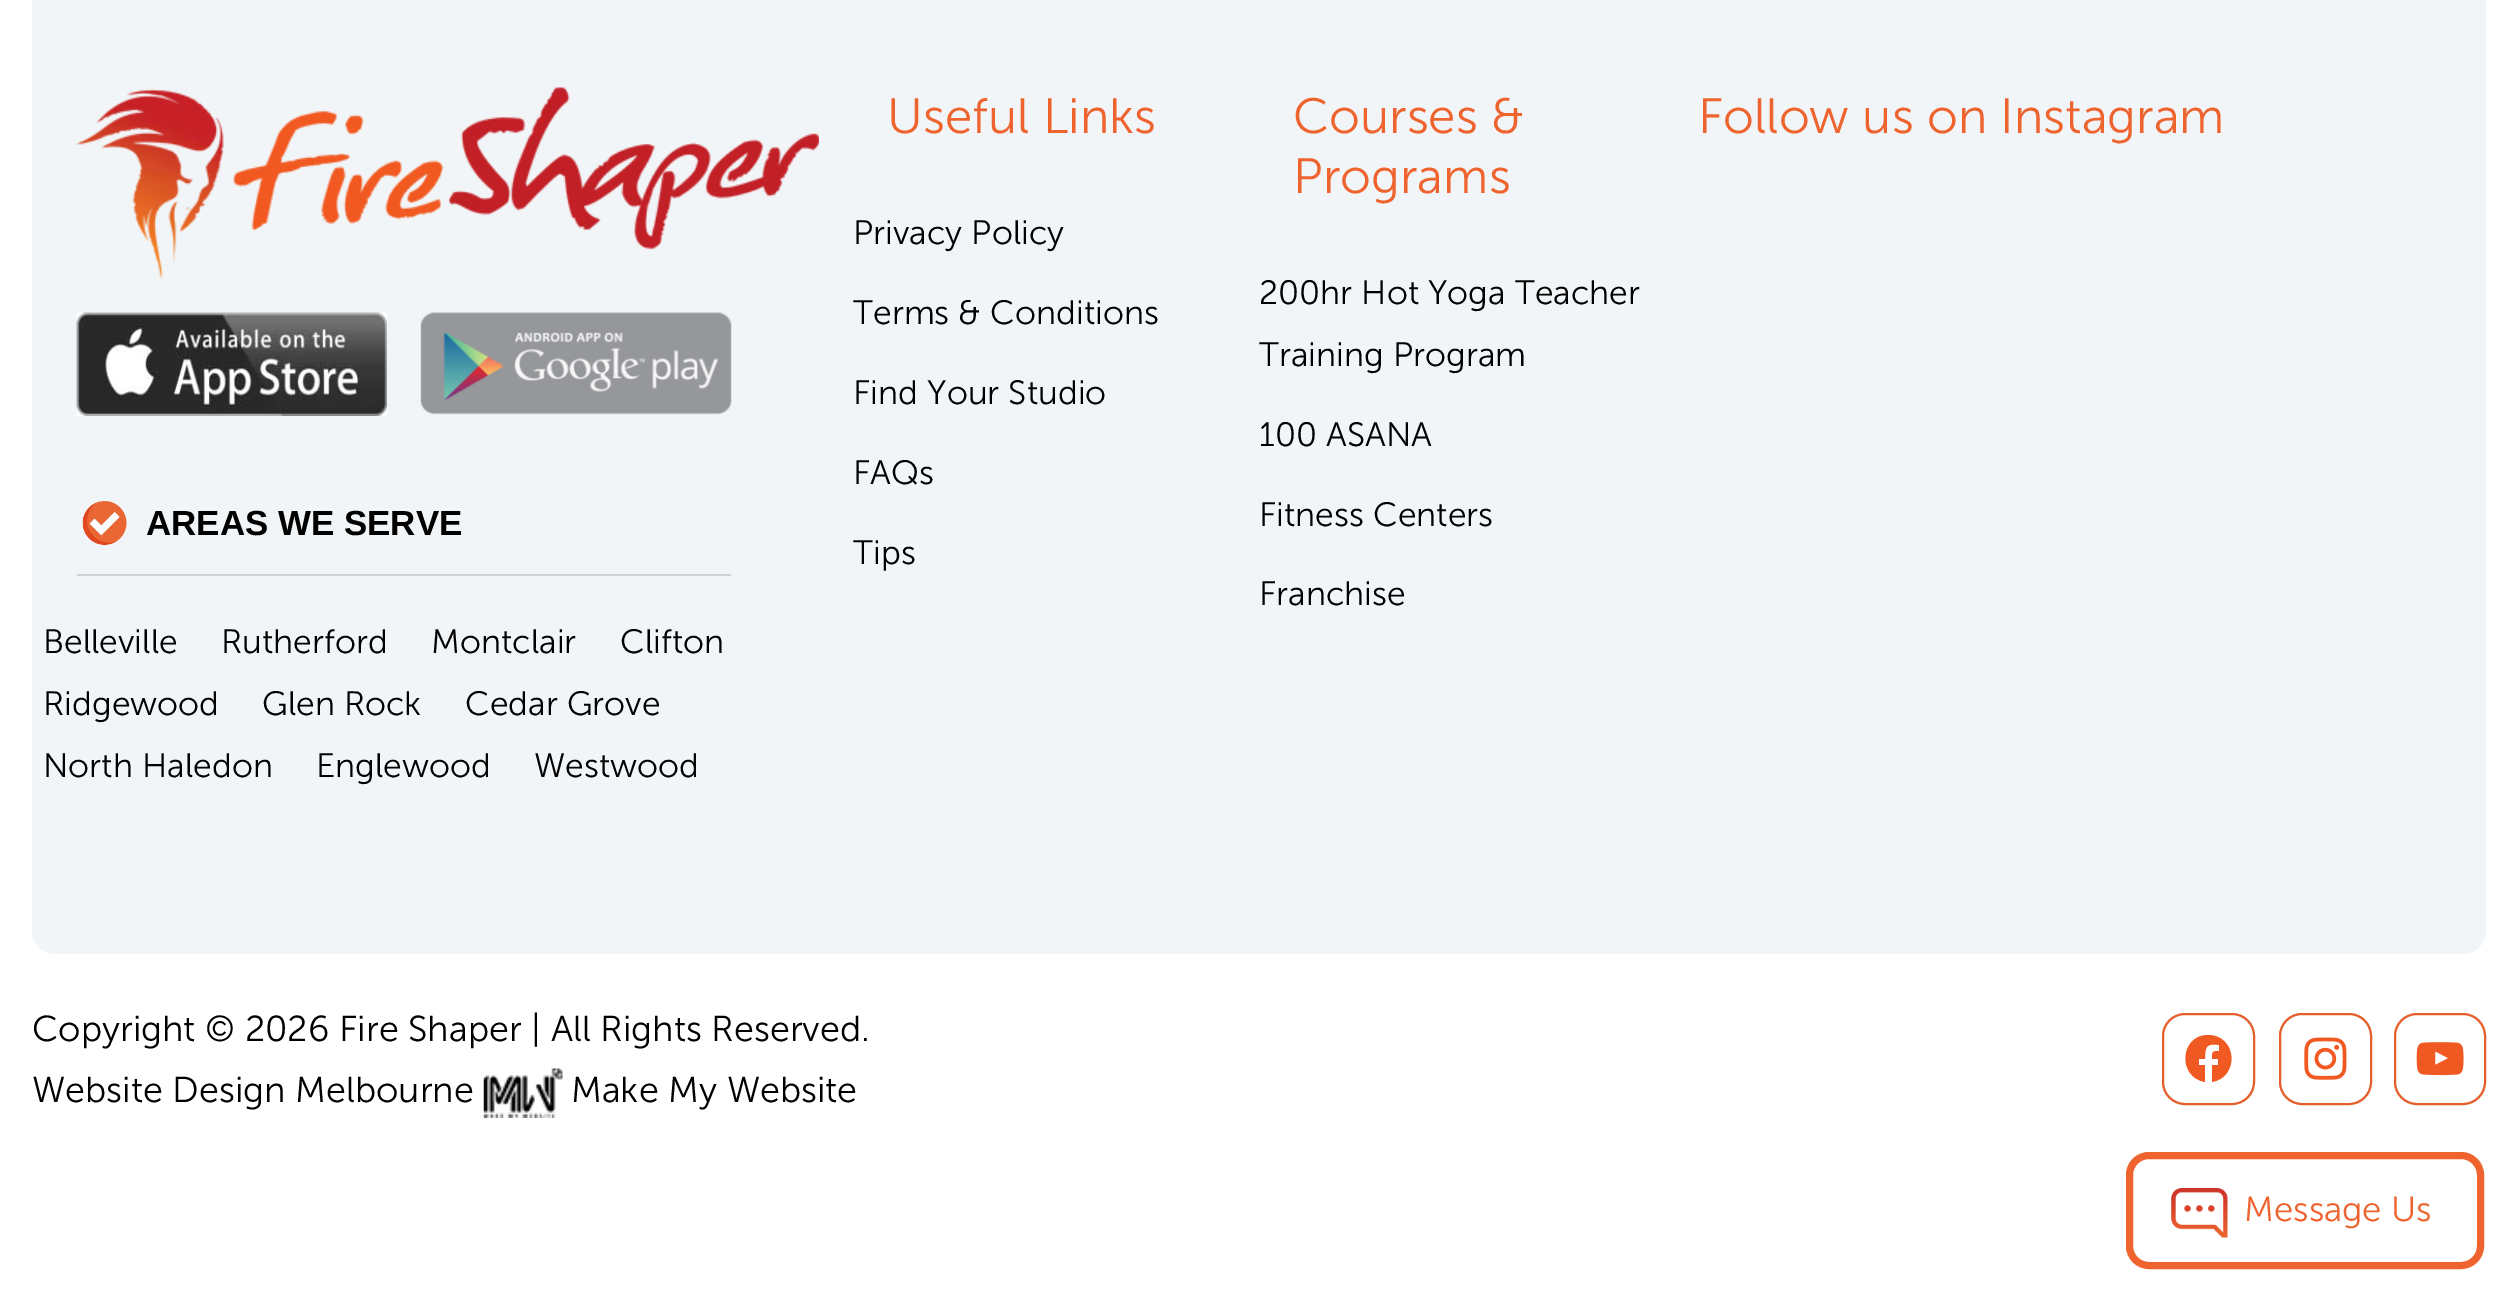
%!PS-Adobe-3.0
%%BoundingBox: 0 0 2515 1300
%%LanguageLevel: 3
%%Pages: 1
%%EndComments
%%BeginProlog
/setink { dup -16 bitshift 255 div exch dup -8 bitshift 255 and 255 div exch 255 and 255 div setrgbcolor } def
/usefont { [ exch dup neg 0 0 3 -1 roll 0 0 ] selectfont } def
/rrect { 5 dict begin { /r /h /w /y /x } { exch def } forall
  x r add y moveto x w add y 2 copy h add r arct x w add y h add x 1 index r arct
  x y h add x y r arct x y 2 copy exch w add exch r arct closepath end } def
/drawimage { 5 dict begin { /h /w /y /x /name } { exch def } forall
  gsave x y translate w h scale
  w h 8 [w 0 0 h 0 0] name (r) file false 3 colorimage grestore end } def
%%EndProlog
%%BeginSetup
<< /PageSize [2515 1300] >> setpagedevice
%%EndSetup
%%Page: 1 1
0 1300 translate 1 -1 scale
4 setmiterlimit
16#FFFFFF setink
0 0 2515 1300 rectfill
16#F2F5F7 setink
32 -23 2454 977 23 rrect fill
/MuseoSans-Light 49.5 usefont
16#EE632E setink
887 133 moveto (Useful Links) show
/MuseoSans-Light 33.75 usefont
16#000000 setink
[
    [(Privacy Policy) 853 244]
    [(Terms & Conditions) 853 324]
    [(Find Your Studio) 853 404]
    [(FAQs) 853 484]
    [(Tips) 853 564]
] { aload pop moveto show } forall
/MuseoSans-Light 49.5 usefont
16#EE632E setink
1293 133 moveto (Courses &) show
1293 193 moveto (Programs) show
/MuseoSans-Light 33.75 usefont
16#000000 setink
[
    [(200hr Hot Yoga Teacher) 1259 304]
    [(Training Program) 1259 366]
    [(100 ASANA) 1259 446]
    [(Fitness Centers) 1259 526]
    [(Franchise) 1259 605]
] { aload pop moveto show } forall
/MuseoSans-Light 49.5 usefont
16#EE632E setink
1698 133 moveto (Follow us on Instagram) show
(img1.raw) 76 87 743 192 drawimage
(img2.raw) 76 312 311 104 drawimage
(img3.raw) 420 312 312 103 drawimage
16#D1D1D1 setink
77 574 654 2 rectfill
(img4.raw) 82 501 45 45 drawimage
/LiberationSans-Bold 34.9 usefont
16#000000 setink
146 535 moveto (AREAS WE SERVE) show
/MuseoSans-Light 33.75 usefont
[
    [(Belleville) 43 653]
    [(Rutherford) 221 653]
    [(Montclair) 431 653]
    [(Clifton) 620 653]
    [(Ridgewood) 43 715]
    [(Glen Rock) 262 715]
    [(Cedar Grove) 465 715]
    [(North Haledon) 43 777]
    [(Englewood) 316 777]
    [(Westwood) 534 777]
] { aload pop moveto show } forall
/MuseoSans-Light 36 usefont
32 1041 moveto (Copyright © 2026 Fire Shaper | All Rights Reserved.) show
32 1102 moveto (Website Design Melbourne) show
(img5.raw) 483 1068 80 50 drawimage
571 1102 moveto (Make My Website) show
16#E55F2C setink
2 setlinewidth
2163 1014 91 90 22 rrect stroke
16#F15922 setink
2208 1035 moveto 2180 1035 2177 1077 2205 1082 curveto 2205 1065 lineto 2199 1065 lineto 2199 1059 lineto 2205 1059 lineto 2205 1047 2206 1043 2219 1045 curveto 2219 1051 lineto 2212 1051 2212 1052 2212 1059 curveto 2218 1059 lineto 2218 1065 lineto 2212 1065 lineto 2212 1082 lineto 2240 1077 2237 1035 2208 1035 curveto closepath fill
16#E55F2C setink
2280 1014 91 90 22 rrect stroke
(img6.raw) 2304 1037 43 43 drawimage
2395 1014 90 90 22 rrect stroke
(img7.raw) 2416 1042 48 34 drawimage
16#EE632E setink
7 setlinewidth
2129.5 1155.5 351 110 19.5 rrect stroke
(img8.raw) 2171 1188 57 50 drawimage
/MuseoSans-Light 34.9 usefont
2244 1221 moveto (Message Us) show
showpage
%%EOF
